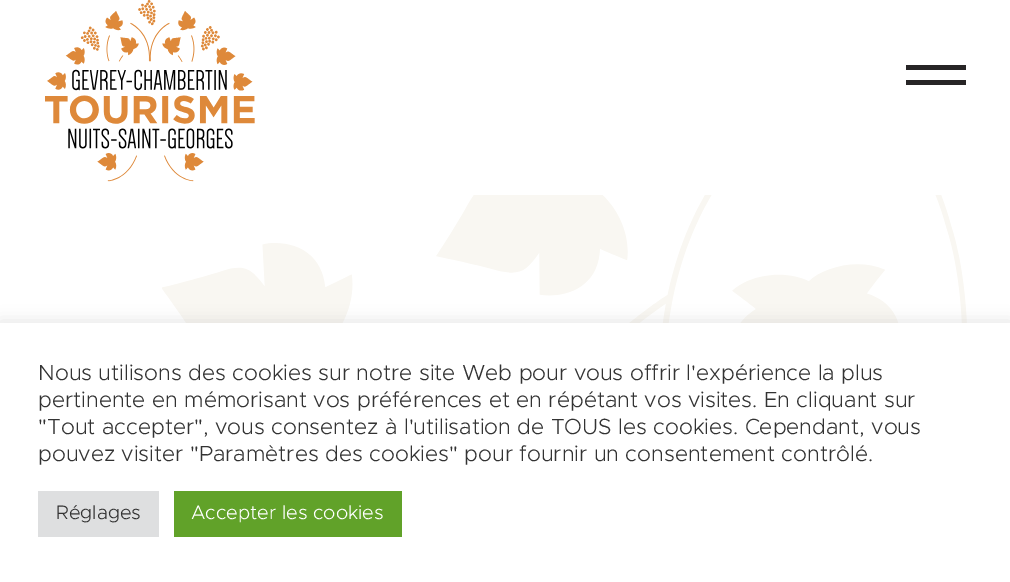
%!PS-Adobe-3.0
%%BoundingBox: 0 0 1010 582
%%LanguageLevel: 3
%%Pages: 1
%%EndComments
%%BeginProlog
/setink { dup -16 bitshift 255 div exch dup -8 bitshift 255 and 255 div exch 255 and 255 div setrgbcolor } def
/usefont { [ exch dup neg 0 0 3 -1 roll 0 0 ] selectfont } def
/setalpha { dup .setfillconstantalpha .setstrokeconstantalpha } def
/rrect { 5 dict begin { /r /h /w /y /x } { exch def } forall
  x r add y moveto x w add y 2 copy h add r arct x w add y h add x 1 index r arct
  x y h add x y r arct x y 2 copy exch w add exch r arct closepath end } def
/softshadow { 12 dict begin { /a /b /q /h /w /y /x } { exch def } forall gsave /was 0 def
  9 -2 -9 { dup b mul 4 div /e exch def 1 sub .425 mul 2.718 exch exp 1 add a .99 .min exch div /now exch def
    1 1 now sub 1 was sub div sub setalpha /was now def
    w h .min e 2 mul add 0 gt { x e sub y e sub w e 2 mul add h e 2 mul add
      q e add b .6 mul add w h .min 2 div e add .min 0 .max rrect fill } if } for grestore end } def
/drawimage { 5 dict begin { /h /w /y /x /name } { exch def } forall
  gsave x y translate w h scale
  w h 8 [w 0 0 h 0 0] name (r) file false 3 colorimage grestore end } def
%%EndProlog
%%BeginSetup
<< /PageSize [1010 582] /PageUsesTransparency true >> setpagedevice
%%EndSetup
%%Page: 1 1
0 .pushpdf14devicefilter
0 582 translate 1 -1 scale
4 setmiterlimit
16#FFFFFF setink
0 0 1010 582 rectfill
(img1.raw) 45 0 210 182 drawimage
16#272526 setink
906 65 60 5 rectfill
906 80 60 5 rectfill
(img2.raw) 162 195 805 128 drawimage
16#ACABAB setink
0 321 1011 260 0 7.5 0.3 softshadow
16#FFFFFF setink
0 323 1010 259 rectfill
/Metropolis-Light 22 usefont
16#333333 setink
[
    [(Nous utilisons des cookies sur notre site Web pour vous offrir l'expérience la plus) 38 380]
    [(pertinente en mémorisant vos préférences et en répétant vos visites. En cliquant sur) 38 407]
    [("Tout accepter", vous consentez à l'utilisation de TOUS les cookies. Cependant, vous) 38 434]
    [(pouvez visiter "Paramètres des cookies" pour fournir un consentement contrôlé.) 38 461]
] { aload pop moveto show } forall
16#DEDFE0 setink
38 491 121 46 rectfill
/Metropolis-Light 19.5 usefont
16#333333 setink
56 519 moveto (Réglages) show
16#61A229 setink
174 491 228 46 rectfill
16#FFFFFF setink
191 519 moveto (Accepter les cookies) show
.poppdf14devicefilter showpage
%%EOF
